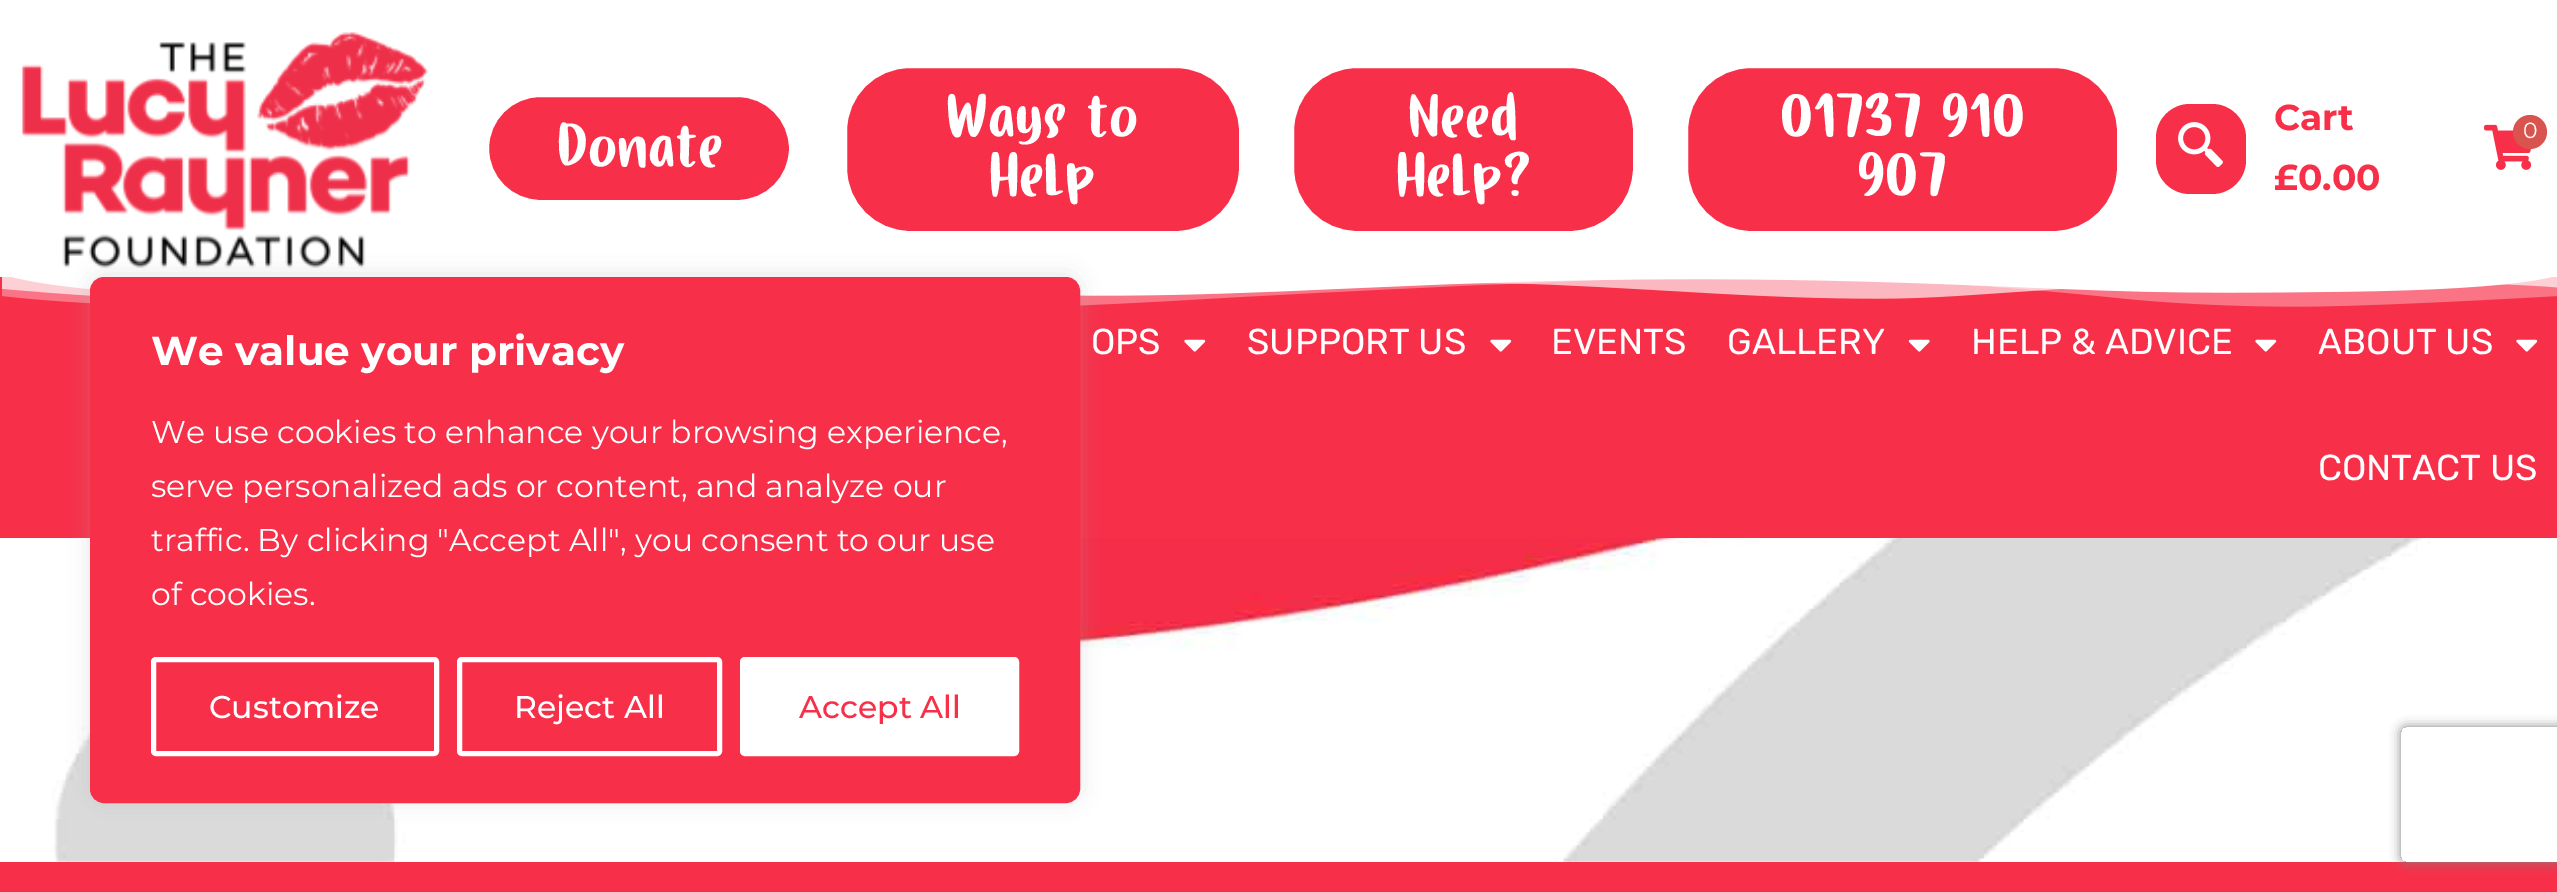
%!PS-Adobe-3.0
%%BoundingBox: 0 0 2557 892
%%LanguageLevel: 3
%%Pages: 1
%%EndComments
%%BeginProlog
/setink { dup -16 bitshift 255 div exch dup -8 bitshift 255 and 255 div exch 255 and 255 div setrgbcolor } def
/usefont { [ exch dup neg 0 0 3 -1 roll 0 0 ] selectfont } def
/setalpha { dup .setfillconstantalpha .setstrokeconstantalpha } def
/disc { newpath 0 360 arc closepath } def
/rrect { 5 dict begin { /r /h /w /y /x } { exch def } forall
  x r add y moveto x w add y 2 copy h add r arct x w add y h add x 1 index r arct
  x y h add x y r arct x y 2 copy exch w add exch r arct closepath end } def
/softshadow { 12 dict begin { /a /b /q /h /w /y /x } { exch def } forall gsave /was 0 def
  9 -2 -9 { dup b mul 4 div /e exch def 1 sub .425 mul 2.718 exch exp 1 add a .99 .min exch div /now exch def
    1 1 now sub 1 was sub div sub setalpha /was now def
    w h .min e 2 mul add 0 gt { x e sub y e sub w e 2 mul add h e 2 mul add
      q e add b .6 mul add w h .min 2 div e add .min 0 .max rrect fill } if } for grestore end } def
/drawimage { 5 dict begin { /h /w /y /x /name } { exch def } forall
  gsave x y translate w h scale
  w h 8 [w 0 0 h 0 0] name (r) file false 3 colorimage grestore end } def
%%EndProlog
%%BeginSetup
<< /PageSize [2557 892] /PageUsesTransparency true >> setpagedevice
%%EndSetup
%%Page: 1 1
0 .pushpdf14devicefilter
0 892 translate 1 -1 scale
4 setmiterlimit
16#FFFFFF setink
0 0 2557 892 rectfill
(img1.raw) 22 32 406 236 drawimage
16#F72F49 setink
486.5 94.5 305 108 54 rrect gsave fill grestore
16#FFFFFF setink
5 setlinewidth
stroke
/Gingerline-Regular 63 usefont
557 167 moveto (Donate) show
16#F72F49 setink
844.5 65.5 397 168 65.5 rrect gsave fill grestore
16#FFFFFF setink
stroke
946 137 moveto (Ways to) show
989 196 moveto (Help) show
16#F72F49 setink
1291.5 65.5 344 168 65.5 rrect gsave fill grestore
16#FFFFFF setink
stroke
1408 137 moveto (Need) show
1396 196 moveto (Help?) show
16#F72F49 setink
1685.5 65.5 434 168 65.5 rrect gsave fill grestore
16#FFFFFF setink
stroke
1780 137 moveto (01737 910) show
1857 196 moveto (907) show
16#F72F49 setink
2156 104 90 90 34 rrect fill
(img2.raw) 2178 122 45 45 drawimage
/Montserrat-Bold 36 usefont
2274 130 moveto (Cart) show
2274 190 moveto (£0.00) show
(img3.raw) 2484 124 48 46 drawimage
16#D9534F setink
2530 132 17 disc fill
/Montserrat-Regular 22 usefont
16#FFFFFF setink
2523 138 moveto (0) show
16#F72F49 setink
0 277 2557 261 rectfill
(img4.raw) 2 277 2555 30 drawimage
/Rubik-Regular 36 usefont
16#FFFFFF setink
1091 354 moveto (OPS) show
(img5.raw) 1184 339 22 13 drawimage
1247 354 moveto (SUPPORT US) show
(img5.raw) 1490 339 22 13 drawimage
1551 354 moveto (EVENTS) show
1727 354 moveto (GALLERY) show
(img6.raw) 1908 339 22 13 drawimage
1971 354 moveto (HELP & ADVICE) show
(img5.raw) 2255 339 22 13 drawimage
2318 354 moveto (ABOUT US) show
(img5.raw) 2516 339 22 13 drawimage
2318 480 moveto (CONTACT US) show
(img7.raw) 0 538 2557 324 drawimage
16#F72F49 setink
0 862 2557 30 rectfill
16#ACABAB setink
90 275 990 526 14 11 0.3 softshadow
16#F72F49 setink
91 278 988 524 13 rrect gsave fill grestore
2 setlinewidth
stroke
/Montserrat-Bold 40.5 usefont
16#FFFFFF setink
151 365 moveto (We value your privacy) show
/Montserrat-Regular 31.5 usefont
[
    [(We use cookies to enhance your browsing experience,) 151 443]
    [(serve personalized ads or content, and analyze our) 151 497]
    [(traffic. By clicking "Accept All", you consent to our use) 151 551]
    [(of cookies.) 151 605]
] { aload pop moveto show } forall
5 setlinewidth
153.5 659.5 283 94 2.5 rrect stroke
/Montserrat-Medium 31.5 usefont
209 718 moveto (Customize) show
459.5 659.5 260 94 2.5 rrect stroke
514 718 moveto (Reject All) show
742.5 659.5 274 94 2.5 rrect gsave fill grestore
stroke
16#F72F49 setink
799 718 moveto (Accept All) show
gsave
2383 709 moveto 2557 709 lineto 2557 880 lineto 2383 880 lineto closepath 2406 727 moveto 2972 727 lineto 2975 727 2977 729 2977 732 curveto 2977 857 lineto 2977 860 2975 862 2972 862 curveto 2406 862 lineto 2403 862 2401 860 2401 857 curveto 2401 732 lineto 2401 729 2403 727 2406 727 curveto closepath eoclip newpath
16#808080 setink
2401 727 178 135 5 5.5 1 softshadow
grestore
.poppdf14devicefilter showpage
%%EOF
